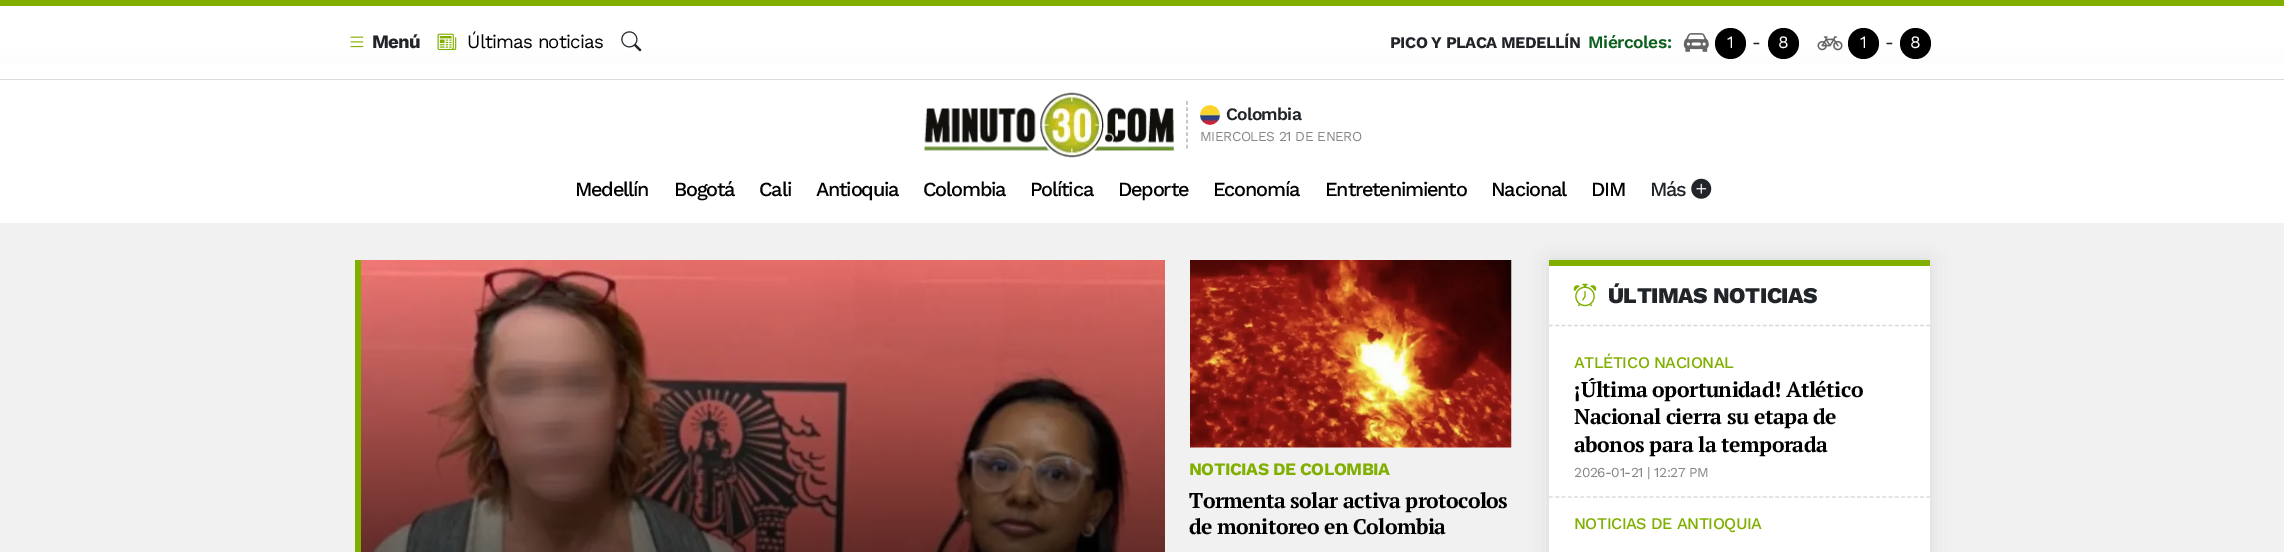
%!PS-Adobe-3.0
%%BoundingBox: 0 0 2284 552
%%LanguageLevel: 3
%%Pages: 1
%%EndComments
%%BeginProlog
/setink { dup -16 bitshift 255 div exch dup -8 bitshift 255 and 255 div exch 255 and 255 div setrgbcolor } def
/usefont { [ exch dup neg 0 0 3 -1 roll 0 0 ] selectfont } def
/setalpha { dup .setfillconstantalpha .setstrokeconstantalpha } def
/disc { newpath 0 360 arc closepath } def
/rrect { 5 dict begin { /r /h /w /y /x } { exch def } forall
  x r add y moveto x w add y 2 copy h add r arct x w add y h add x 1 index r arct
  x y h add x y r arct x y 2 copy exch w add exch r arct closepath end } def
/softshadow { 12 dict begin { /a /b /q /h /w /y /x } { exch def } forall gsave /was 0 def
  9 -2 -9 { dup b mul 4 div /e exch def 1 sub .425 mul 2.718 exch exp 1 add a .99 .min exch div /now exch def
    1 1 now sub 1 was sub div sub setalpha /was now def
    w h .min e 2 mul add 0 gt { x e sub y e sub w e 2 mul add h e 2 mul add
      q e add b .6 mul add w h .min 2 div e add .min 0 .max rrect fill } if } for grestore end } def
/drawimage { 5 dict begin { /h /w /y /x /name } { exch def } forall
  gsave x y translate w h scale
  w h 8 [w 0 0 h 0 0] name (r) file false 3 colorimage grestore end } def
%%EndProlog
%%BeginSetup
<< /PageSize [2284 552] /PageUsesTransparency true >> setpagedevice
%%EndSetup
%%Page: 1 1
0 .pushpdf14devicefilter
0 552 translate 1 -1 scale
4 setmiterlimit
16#FFFFFF setink
0 0 2284 552 rectfill
gsave
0 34 moveto 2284 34 lineto 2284 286 lineto 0 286 lineto closepath 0 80 moveto 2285 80 lineto 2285 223 lineto 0 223 lineto closepath eoclip newpath
16#64646F setink
0 89 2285 142 0 18 0.2 softshadow
grestore
[
    [0 64 2284 15 16#FFFFFF]
    [0 0 2284 6 16#80AF00]
    [0 79 2284 1 16#DADADA]
] { aload pop setink rectfill } forall
(img1.raw) 350 36 14 12 drawimage
/WorkSans-Bold 18.75 usefont
16#212529 setink
372 48 moveto -0.75 0 (Menú) ashow
(img2.raw) 437 33 20 18 drawimage
/WorkSans-Regular 18.75 usefont
16#000000 setink
467 48 moveto -0.75 0 (Últimas noticias) ashow
(img3.raw) 621 31 21 21 drawimage
/WorkSans-Bold 16.25 usefont
16#212529 setink
1390 48 moveto -0.5 0 (PICO Y PLACA MEDELLÍN) ashow
/WorkSans-SemiBold 17.5 usefont
16#0D601E setink
1588 48 moveto -0.5 0 (Miércoles:) ashow
(img4.raw) 1683 33 26 19 drawimage
16#000000 setink
1730.5 43.5 15.5 disc fill
/WorkSans-Regular 17.5 usefont
16#FFFFFF setink
1727 48 moveto -0.5 0 (1) ashow
16#212529 setink
1752 48 moveto -0.5 0 (-) ashow
16#000000 setink
1783.5 43.5 15.5 disc fill
16#FFFFFF setink
1778 48 moveto -0.5 0 (8) ashow
(img5.raw) 1817 36 26 15 drawimage
16#000000 setink
1863.5 43.5 15.5 disc fill
16#FFFFFF setink
1860 48 moveto -0.5 0 (1) ashow
16#212529 setink
1885 48 moveto -0.5 0 (-) ashow
16#000000 setink
1915.5 43.5 15.5 disc fill
16#FFFFFF setink
1910 48 moveto -0.5 0 (8) ashow
(img6.raw) 923 92 251 66 drawimage
16#B3B2B2 setink
1.2 setlinewidth
[3.75 2.5] 0 setdash
1187 101 moveto 1187 149 lineto stroke
(img7.raw) 1200 105 20 20 drawimage
/WorkSans-SemiBold 17.5 usefont
16#212529 setink
1226 120 moveto -0.75 0 (Colombia) ashow
/WorkSans-Regular 13.75 usefont
16#878787 setink
1200 141 moveto -0.5 0 (MIERCOLES 21 DE ENERO) ashow
/WorkSans-Medium 20 usefont
16#000000 setink
575 196 moveto -1.25 0 (Medellín) ashow
674 196 moveto -1.25 0 (Bogotá) ashow
759 196 moveto -1.25 0 (Cali) ashow
816 196 moveto -1.25 0 (Antioquia) ashow
923 196 moveto -1.25 0 (Colombia) ashow
1030 196 moveto -1.25 0 (Política) ashow
1118 196 moveto -1.25 0 (Deporte) ashow
1213 196 moveto -1.25 0 (Economía) ashow
1325 196 moveto -1.25 0 (Entretenimiento) ashow
1491 196 moveto -1.25 0 (Nacional) ashow
1591 196 moveto -1.25 0 (DIM) ashow
16#212529 setink
1650 196 moveto -1.25 0 (Más) ashow
(img8.raw) 1691 178 21 21 drawimage
16#F1F1F1 setink
0 223 2284 329 rectfill
16#80AF00 setink
355 260 6 292 rectfill
(img9.raw) 361 260 804 292 drawimage
(img10.raw) 1190 260 322 188 drawimage
/WorkSans-Bold 17.5 usefont
1189 475 moveto -0.5 0 (NOTICIAS DE COLOMBIA) ashow
/PTSerif-Bold 21.25 usefont
16#000000 setink
1189 508 moveto -0.6 0 (Tormenta solar activa protocolos) ashow
1189 534 moveto -0.6 0 (de monitoreo en Colombia) ashow
1549 260 381 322 0 10 0.09 softshadow
16#FFFFFF setink
1549 266 381 286 rectfill
16#80AF00 setink
1549 260 381 6 rectfill
16#DADADA setink
[3.75 2.54] 0 setdash
1549 325.5 moveto 1930 325.5 lineto stroke
(img11.raw) 1573 283 24 24 drawimage
/WorkSans-ExtraBold 22.5 usefont
16#212529 setink
1608 303 moveto -0.5 0 (ÚLTIMAS NOTICIAS) ashow
16#DADADA setink
1549 497 moveto 1930 497 lineto stroke
/WorkSans-Medium 16.25 usefont
16#80AF00 setink
1574 368 moveto -0.5 0 (ATLÉTICO NACIONAL) ashow
/PTSerif-Bold 21.25 usefont
16#000000 setink
1574 397 moveto -0.5 0 (¡Última oportunidad! Atlético) ashow
1574 424 moveto -0.5 0 (Nacional cierra su etapa de) ashow
1574 452 moveto -0.5 0 (abonos para la temporada) ashow
/WorkSans-Regular 13.75 usefont
16#878787 setink
1574 477 moveto -0.5 0 (2026-01-21 | 12:27 PM) ashow
/WorkSans-Medium 16.25 usefont
16#80AF00 setink
1574 529 moveto -0.5 0 (NOTICIAS DE ANTIOQUIA) ashow
.poppdf14devicefilter showpage
%%EOF
